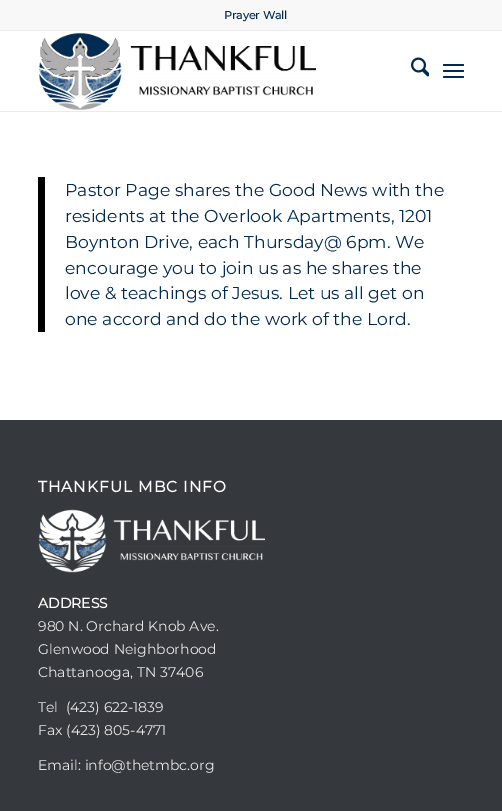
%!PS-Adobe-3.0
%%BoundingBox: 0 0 502 811
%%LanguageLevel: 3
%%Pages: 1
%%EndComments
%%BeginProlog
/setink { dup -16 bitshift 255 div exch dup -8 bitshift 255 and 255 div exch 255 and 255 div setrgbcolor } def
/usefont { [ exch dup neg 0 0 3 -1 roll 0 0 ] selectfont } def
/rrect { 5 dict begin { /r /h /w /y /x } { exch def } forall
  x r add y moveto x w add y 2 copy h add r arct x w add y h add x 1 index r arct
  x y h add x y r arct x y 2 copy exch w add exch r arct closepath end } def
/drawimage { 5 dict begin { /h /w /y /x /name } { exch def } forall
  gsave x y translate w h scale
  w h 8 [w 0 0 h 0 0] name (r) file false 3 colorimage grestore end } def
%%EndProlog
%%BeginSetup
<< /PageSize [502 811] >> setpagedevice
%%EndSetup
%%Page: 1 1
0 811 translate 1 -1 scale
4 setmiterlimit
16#FFFFFF setink
0 0 502 811 rectfill
16#F8F8F8 setink
0 0 502 30 rectfill
16#EBEBEB setink
0 30 502 1 rectfill
/Montserrat-Bold 11 usefont
16#002A52 setink
224 19 moveto (Prayer Wall) show
16#EBEBEB setink
0 111 502 1 rectfill
(img1.raw) 38 32 278 79 drawimage
(img2.raw) 411 57 18 20 drawimage
16#002A52 setink
443 70 21 2 1 rrect fill
443 64 21 2 1 rrect fill
443 76 21 2 1 rrect fill
16#000000 setink
38 177 7 155 rectfill
/Montserrat-Thin 17.25 usefont
16#002A52 setink
[
    [(Pastor Page shares the Good News with the) 65 196]
    [(residents at the Overlook Apartments, 1201) 65 222]
    [(Boynton Drive, each Thursday@ 6pm. We) 65 248]
    [(encourage you to join us as he shares the) 65 274]
    [(love & teachings of Jesus. Let us all get on) 65 299]
    [(one accord and do the work of the Lord.) 65 325]
] { aload pop moveto show } forall
16#35383C setink
0 420 502 391 rectfill
/Montserrat-Bold 15.4 usefont
16#FFFFFF setink
38 492 moveto 1 0 (THANKFUL MBC INFO) ashow
(img3.raw) 38 509 227 64 drawimage
/Montserrat-Bold 14 usefont
38 608 moveto (ADDRESS) show
/Montserrat-Thin 14 usefont
16#E8E8E8 setink
[
    [(980 N. Orchard Knob Ave.) 38 631]
    [(Glenwood Neighborhood) 38 654]
    [(Chattanooga, TN 37406) 38 677]
    [(Tel  \(423\) 622-1839) 38 712]
    [(Fax \(423\) 805-4771) 38 735]
    [(Email: info@thetmbc.org) 38 770]
] { aload pop moveto show } forall
showpage
%%EOF
